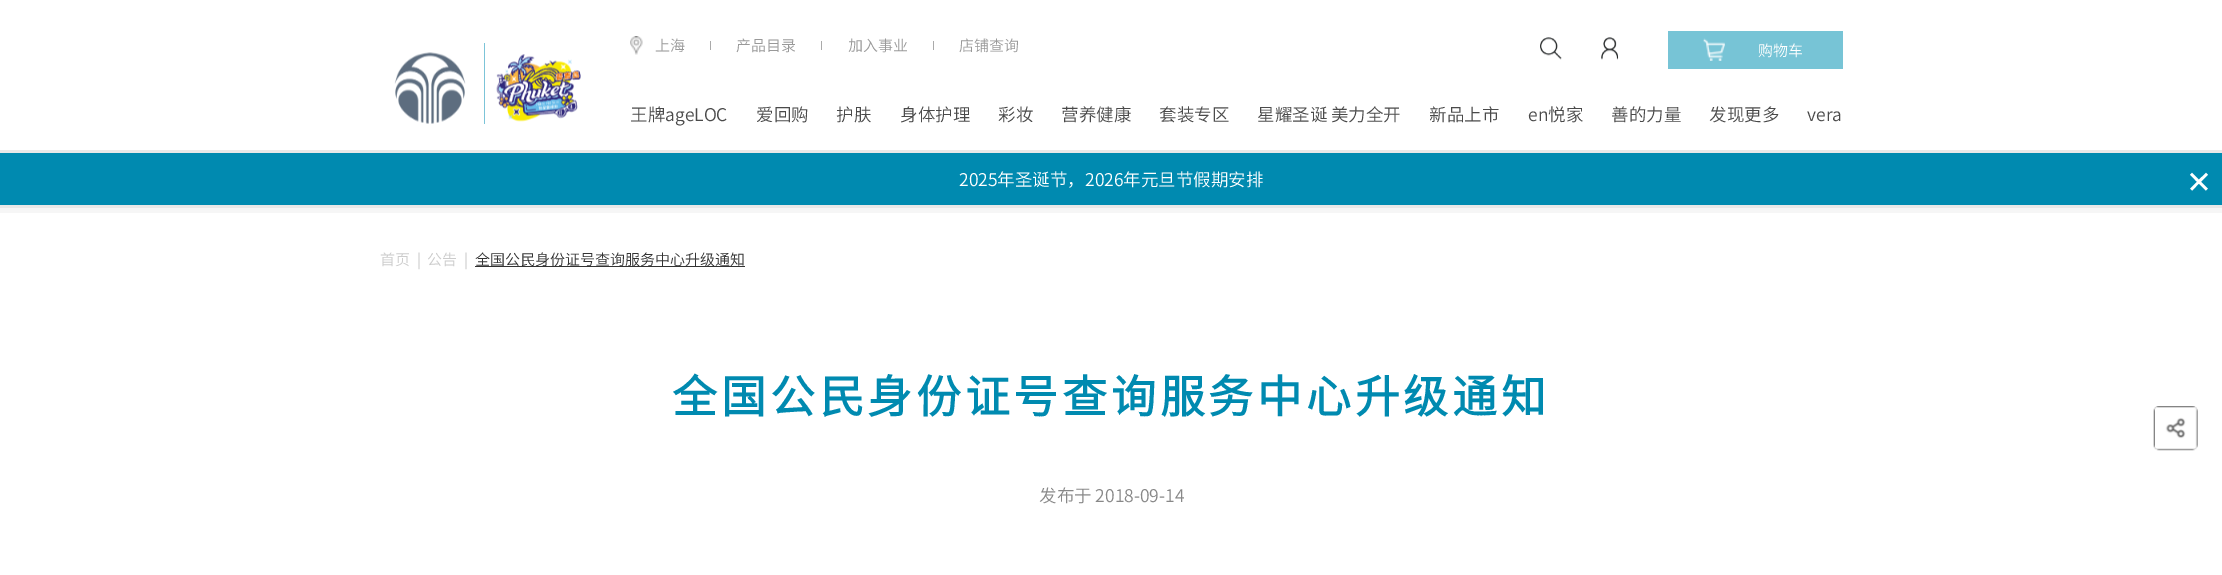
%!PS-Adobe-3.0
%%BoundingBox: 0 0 2222 575
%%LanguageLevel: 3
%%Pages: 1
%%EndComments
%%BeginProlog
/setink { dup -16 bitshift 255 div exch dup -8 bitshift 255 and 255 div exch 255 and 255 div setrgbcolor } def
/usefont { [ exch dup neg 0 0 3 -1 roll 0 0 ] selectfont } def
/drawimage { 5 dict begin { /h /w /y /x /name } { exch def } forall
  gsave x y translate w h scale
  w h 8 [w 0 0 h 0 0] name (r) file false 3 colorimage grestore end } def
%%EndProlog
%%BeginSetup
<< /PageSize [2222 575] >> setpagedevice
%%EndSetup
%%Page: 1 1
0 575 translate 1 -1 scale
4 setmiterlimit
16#FFFFFF setink
0 0 2222 575 rectfill
(img1.raw) 394 52 72 72 drawimage
16#7CC4D8 setink
484 43 1 81 rectfill
(img2.raw) 496 54 85 68 drawimage
(img3.raw) 630 36 13 19 drawimage
/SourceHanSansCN-Light 15 usefont
16#999999 setink
655 51 moveto (上海) show
16#AAAAAA setink
710 41 1 9 rectfill
16#999999 setink
736 51 moveto (产品目录) show
16#AAAAAA setink
821 41 1 9 rectfill
16#999999 setink
848 51 moveto (加入事业) show
16#AAAAAA setink
933 41 1 9 rectfill
16#999999 setink
959 51 moveto (店铺查询) show
(img4.raw) 1540 37 22 23 drawimage
(img5.raw) 1601 37 18 23 drawimage
16#77C4D6 setink
1668 31 175 38 rectfill
(img6.raw) 1703 38 22 23 drawimage
16#FFFFFF setink
1758 56 moveto (购物车) show
/SourceHanSansCN-Light 17.5 usefont
16#4A4A4A setink
[
    [(王牌ageLOC) 630 121]
    [(爱回购) 756 121]
    [(护肤) 836 121]
    [(身体护理) 900 121]
    [(彩妆) 998 121]
    [(营养健康) 1061 121]
    [(套装专区) 1159 121]
    [(星耀圣诞 美力全开) 1257 121]
    [(新品上市) 1429 121]
    [(en悦家) 1528 121]
    [(善的力量) 1611 121]
    [(发现更多) 1709 121]
    [(vera) 1807 121]
] { aload pop moveto show } forall
[
    [0 153 2222 52 16#008AB0]
    [0 150 2222 3 16#E8E8E8]
    [0 205 2222 3 16#E8E8E8]
] { aload pop setink rectfill } forall
16#FFFFFF setink
959 186 moveto (2025年圣诞节，2026年元旦节假期安排) show
/DejaVuSans-Regular 31 usefont
2186 193 moveto (✕) show
16#F6F6F6 setink
0 208 2222 5 rectfill
/SourceHanSansCN-Light 15 usefont
16#CCCCCC setink
[
    [(首页) 380 265]
    [(|) 417 265]
    [(公告) 427 265]
    [(|) 464 265]
] { aload pop moveto show } forall
16#333333 setink
475 266 270 1 rectfill
475 265 moveto (全国公民身份证号查询服务中心升级通知) show
/SourceHanSansCN-Bold 45 usefont
16#008AB0 setink
672 413 moveto 3.75 0 (全国公民身份证号查询服务中心升级通知) ashow
/SourceHanSansCN-Light 17.5 usefont
16#888888 setink
1039 502 moveto (发布于 2018-09-14) show
(img7.raw) 2153 406 45 45 drawimage
showpage
%%EOF
